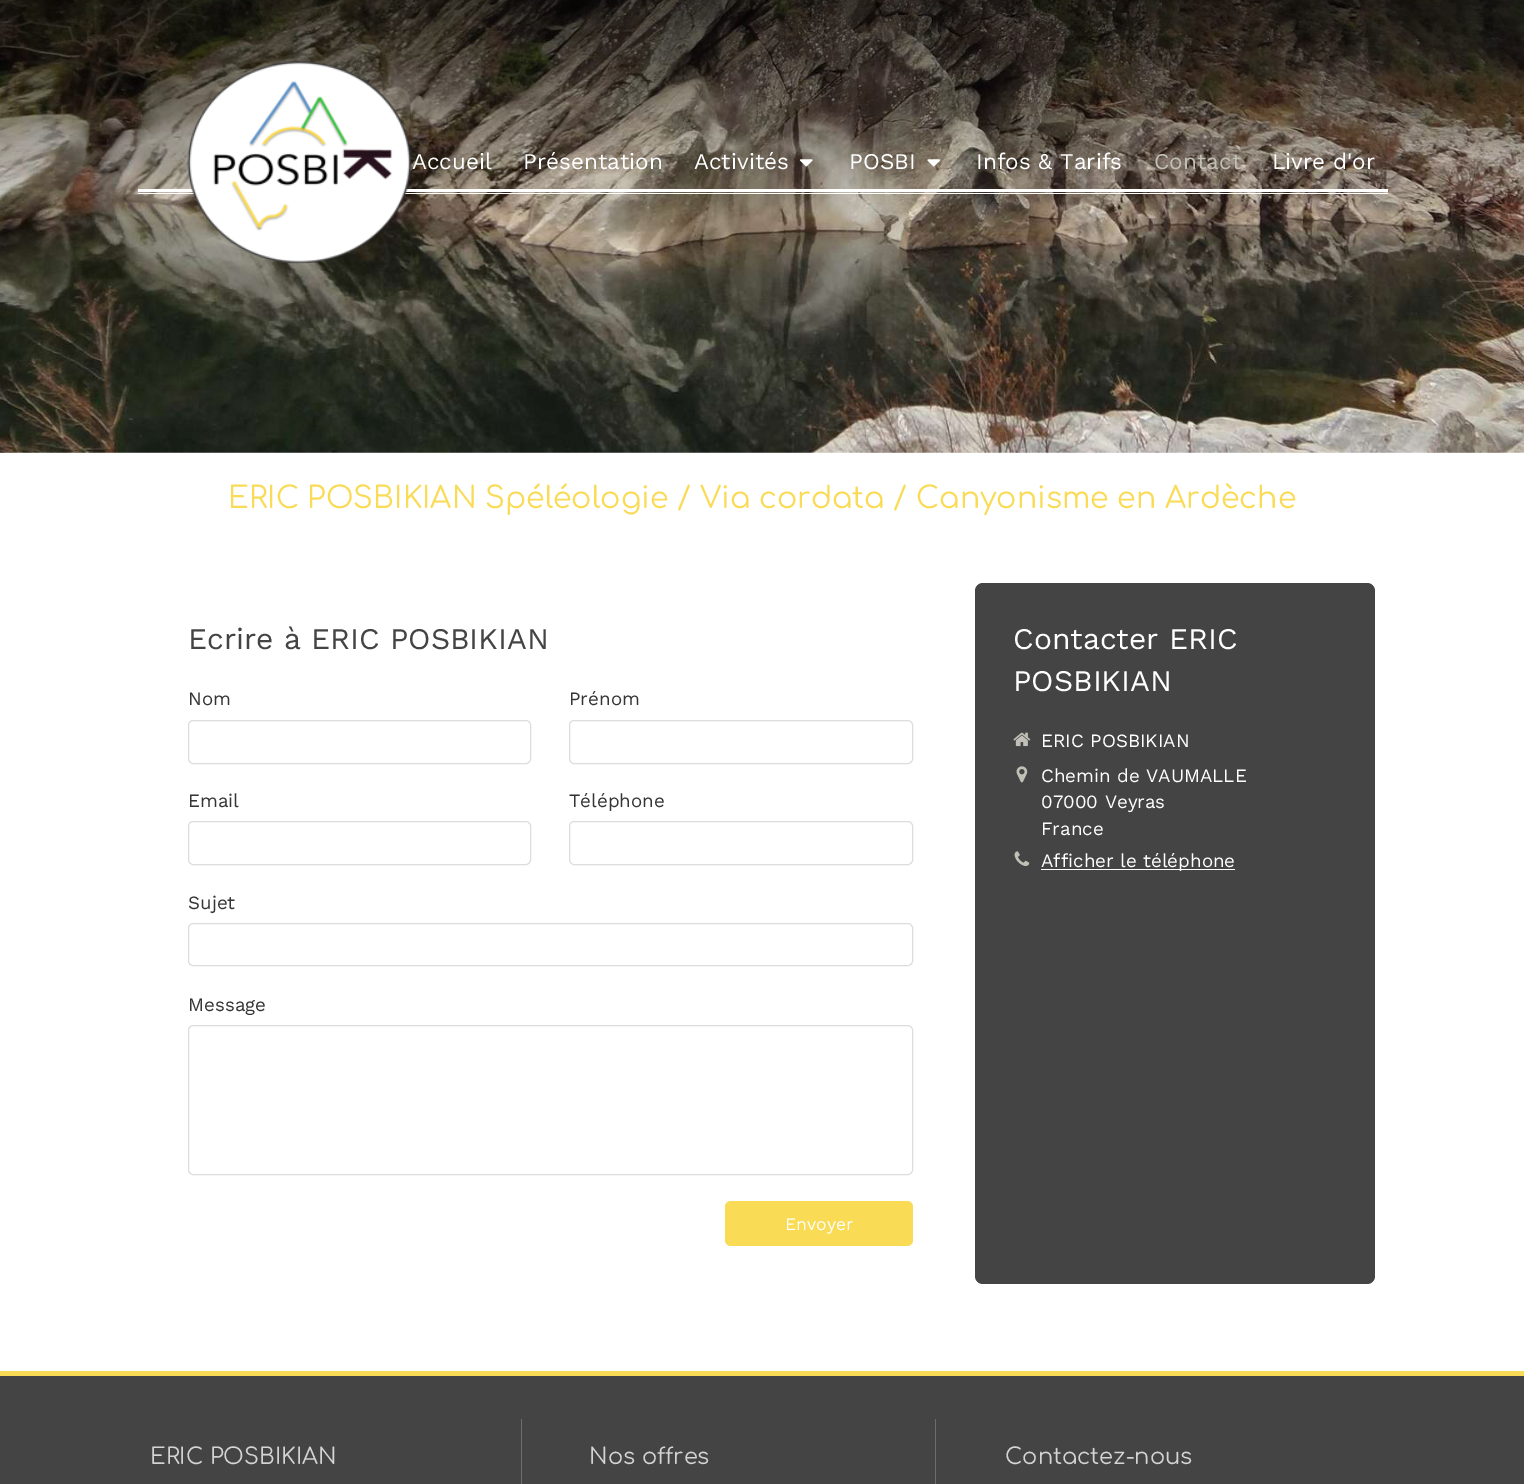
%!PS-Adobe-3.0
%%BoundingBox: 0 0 1524 1484
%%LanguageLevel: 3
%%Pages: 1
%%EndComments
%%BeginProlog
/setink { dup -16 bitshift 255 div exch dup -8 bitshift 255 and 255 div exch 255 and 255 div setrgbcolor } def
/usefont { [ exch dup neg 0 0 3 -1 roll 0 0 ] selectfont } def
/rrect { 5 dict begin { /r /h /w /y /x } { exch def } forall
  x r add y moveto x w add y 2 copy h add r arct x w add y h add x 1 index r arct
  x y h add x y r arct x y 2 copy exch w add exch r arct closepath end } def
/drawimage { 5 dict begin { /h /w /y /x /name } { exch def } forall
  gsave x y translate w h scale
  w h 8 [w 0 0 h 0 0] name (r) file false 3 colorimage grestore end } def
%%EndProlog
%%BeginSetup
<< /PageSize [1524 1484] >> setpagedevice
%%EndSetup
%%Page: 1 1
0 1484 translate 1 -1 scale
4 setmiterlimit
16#FFFFFF setink
0 0 1524 1484 rectfill
(img1.raw) 0 0 1524 453 drawimage
138 189 1250 3 rectfill
138 193 1250 1 rectfill
(img2.raw) 187 61 225 203 drawimage
/WorkSans-Regular 22.5 usefont
[
    [(Accueil) 412 169]
    [(Présentation) 523 169]
    [(Activités) 694 169]
] { aload pop moveto show } forall
(img3.raw) 799 159 14 8 drawimage
849 169 moveto (POSBI) show
(img4.raw) 927 159 14 8 drawimage
976 169 moveto (Infos & Tarifs) show
16#C1C0B7 setink
1154 169 moveto (Contact) show
16#FFFFFF setink
1272 169 moveto (Livre d'or) show
/Comfortaa-Regular 30 usefont
16#FADB55 setink
228 508 moveto (ERIC POSBIKIAN Spéléologie / Via cordata / Canyonisme en Ardèche) show
/WorkSans-Regular 30 usefont
16#444444 setink
188 649 moveto (Ecrire à ERIC POSBIKIAN) show
/WorkSans-Regular 18.75 usefont
16#353535 setink
188 705 moveto (Nom) show
16#DDDDDD setink
188.5 720.5 342 43 4.5 rrect stroke
16#353535 setink
569 705 moveto (Prénom) show
16#DDDDDD setink
569.5 720.5 343 43 4.5 rrect stroke
16#353535 setink
188 807 moveto (Email) show
16#DDDDDD setink
188.5 821.5 342 43 4.5 rrect stroke
16#353535 setink
569 807 moveto (Téléphone) show
16#DDDDDD setink
569.5 821.5 343 43 4.5 rrect stroke
16#353535 setink
188 909 moveto (Sujet) show
16#DDDDDD setink
188.5 923.5 724 42 4.5 rrect stroke
16#353535 setink
188 1011 moveto (Message) show
16#DDDDDD setink
188.5 1025.5 724 149 4.5 rrect stroke
16#FADB55 setink
725 1201 188 45 6 rrect fill
/WorkSans-Regular 17.5 usefont
16#FFFFFF setink
785 1230 moveto (Envoyer) show
16#444444 setink
975 583 400 701 8 rrect fill
/WorkSans-Regular 30 usefont
16#FFFFFF setink
1013 649 moveto (Contacter ERIC) show
1013 691 moveto (POSBIKIAN) show
(img5.raw) 1013 732 18 15 drawimage
/WorkSans-Regular 18.75 usefont
1041 747 moveto (ERIC POSBIKIAN) show
(img6.raw) 1016 766 12 17 drawimage
[
    [(Chemin de VAUMALLE) 1041 782]
    [(07000 Veyras) 1041 808]
    [(France) 1041 835]
] { aload pop moveto show } forall
(img7.raw) 1014 851 16 16 drawimage
1041 869 194 1 rectfill
1041 867 moveto (Afficher le téléphone) show
16#444444 setink
0 1376 1524 108 rectfill
16#FADB55 setink
0 1371 1524 5 rectfill
/Comfortaa-Regular 22.5 usefont
16#D4D4D4 setink
150 1464 moveto (ERIC POSBIKIAN) show
16#6D6D6D setink
521 1419 1 65 rectfill
16#D4D4D4 setink
589 1464 moveto (Nos offres) show
16#6D6D6D setink
935 1419 1 65 rectfill
16#D4D4D4 setink
1005 1464 moveto (Contactez-nous) show
showpage
%%EOF
